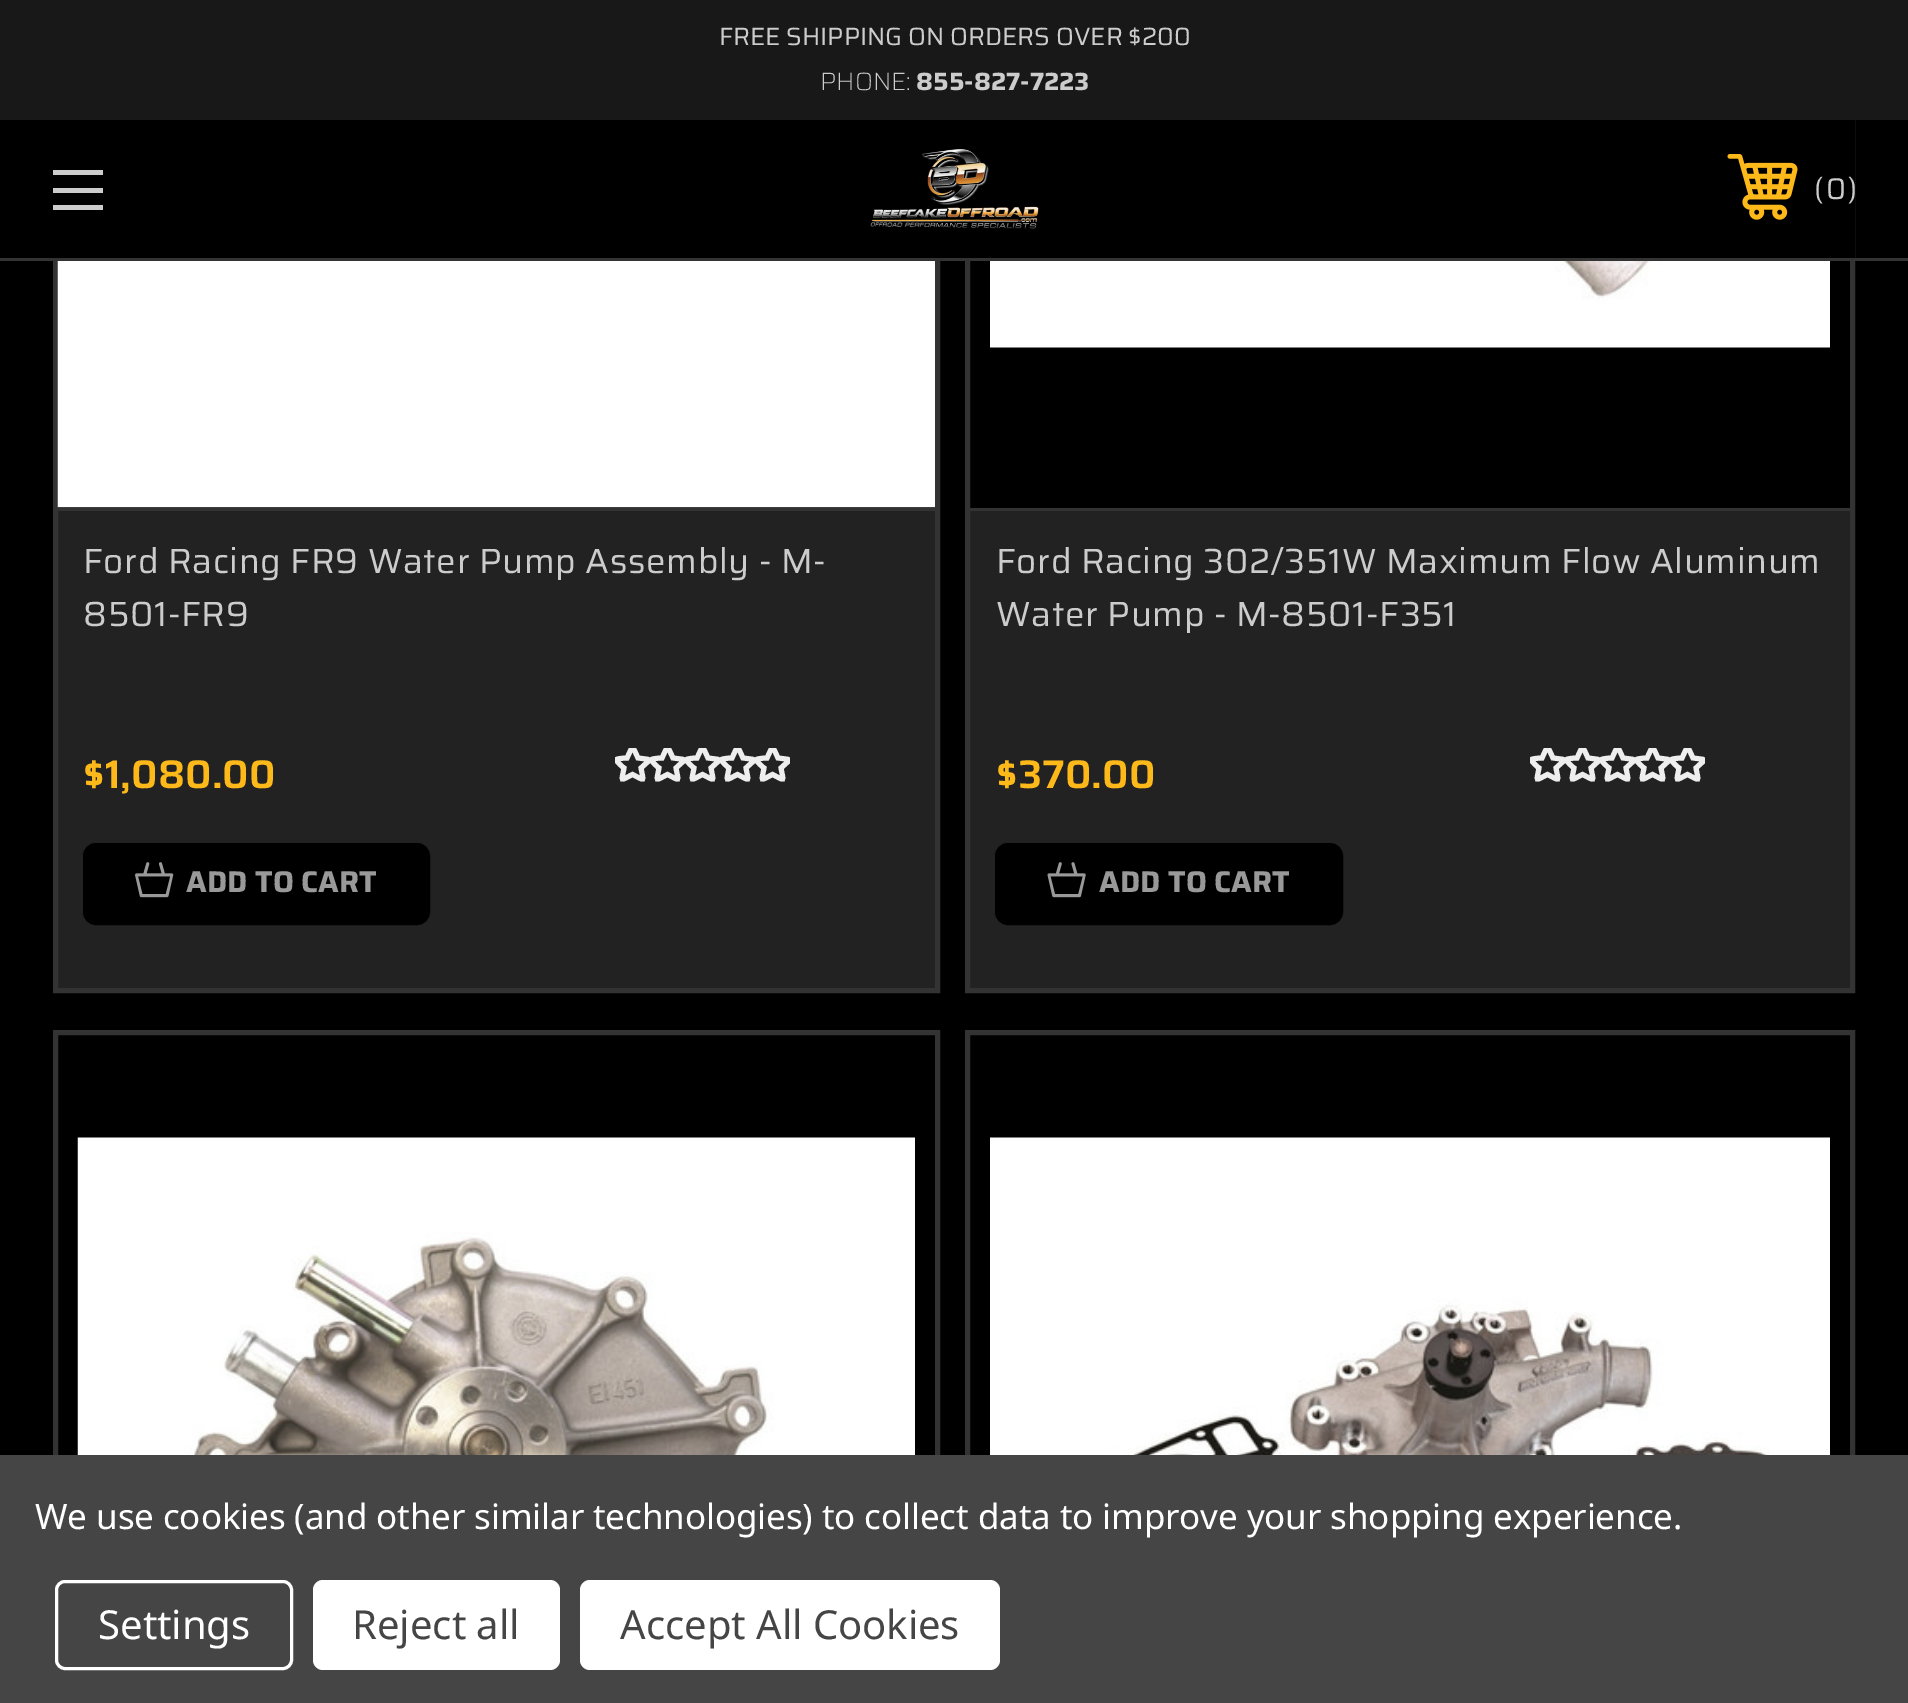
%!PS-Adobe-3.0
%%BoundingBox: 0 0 1908 1703
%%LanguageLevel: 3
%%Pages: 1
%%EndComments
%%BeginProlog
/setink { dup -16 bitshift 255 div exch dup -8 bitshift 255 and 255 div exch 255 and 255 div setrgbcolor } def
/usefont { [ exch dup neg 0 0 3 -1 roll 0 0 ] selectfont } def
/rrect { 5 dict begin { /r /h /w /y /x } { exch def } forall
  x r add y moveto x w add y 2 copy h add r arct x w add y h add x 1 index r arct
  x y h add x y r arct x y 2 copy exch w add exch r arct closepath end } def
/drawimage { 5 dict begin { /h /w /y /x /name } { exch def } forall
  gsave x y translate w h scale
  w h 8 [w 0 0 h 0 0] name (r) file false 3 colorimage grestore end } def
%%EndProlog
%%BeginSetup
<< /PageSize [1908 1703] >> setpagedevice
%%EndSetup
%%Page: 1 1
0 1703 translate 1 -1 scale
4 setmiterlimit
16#000000 setink
0 0 1908 1703 rectfill
16#222222 setink
58 511 877 477 rectfill
16#333333 setink
5 setlinewidth
55.5 -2.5 882 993 rectstroke
16#222222 setink
970 511 880 477 rectfill
16#333333 setink
967.5 -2.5 885 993 rectstroke
16#181818 setink
0 0 1908 120 rectfill
/Saira-Regular 25 usefont
16#CCCCCC setink
719 45 moveto (FREE SHIPPING ON ORDERS OVER $200) show
/Saira-ExtraLight 25 usefont
820 90 moveto (PHONE:) show
/Saira-Bold 25 usefont
916 90 moveto (855-827-7223) show
[
    [53 120 1802 138 16#000000]
    [0 258 1908 3 16#333333]
    [53 188 50 5 16#CCCCCC]
    [53 170 50 5 16#CCCCCC]
    [53 205 50 5 16#CCCCCC]
] { aload pop setink rectfill } forall
(img1.raw) 870 149 169 80 drawimage
(img2.raw) 1727 154 71 66 drawimage
/Saira-Regular 30 usefont
[
    [(\() 1814 199]
    [(0) 1826 199]
    [(\)) 1848 199]
] { aload pop moveto show } forall
(img3.raw) 57 261 878 247 drawimage
16#333333 setink
58 508 877 3 rectfill
/Saira-Regular 35 usefont
16#CCCCCC setink
83 573 moveto 0.6 0 (Ford Racing FR9 Water Pump Assembly - M-) ashow
83 626 moveto 0.6 0 (8501-FR9) ashow
/Saira-SemiBold 40 usefont
16#FDB819 setink
83 788 moveto ($1,080.00) show
gsave
615 748 35 35 rectclip
16#EEEEEE setink
616 760 moveto 616 758.5 625.5 758 627 758 curveto 633.5 744.5 631.5 744.5 638 758 curveto 652.5 760 651.5 758 641 768 curveto 643.5 782 645.5 781 632.5 774.5 curveto 619.5 781 621.5 782 624 768 curveto 622.5 767 616.5 761.5 616.5 760 curveto closepath stroke
grestore
gsave
650 748 35 35 rectclip
16#EEEEEE setink
651 760 moveto 651 758.5 660.5 758 662 758 curveto 668.5 744.5 666.5 744.5 673 758 curveto 687.5 760 686.5 758 676 768 curveto 678.5 782 680.5 781 667.5 774.5 curveto 654.5 781 656.5 782 659 768 curveto 657.5 767 651.5 761.5 651.5 760 curveto closepath stroke
grestore
gsave
685 748 35 35 rectclip
16#EEEEEE setink
686 760 moveto 686 758.5 695.5 758 697 758 curveto 703.5 744.5 701.5 744.5 708 758 curveto 722.5 760 721.5 758 711 768 curveto 713.5 782 715.5 781 702.5 774.5 curveto 689.5 781 691.5 782 694 768 curveto 692.5 767 686.5 761.5 686.5 760 curveto closepath stroke
grestore
gsave
720 748 35 35 rectclip
16#EEEEEE setink
721 760 moveto 721 758.5 730.5 758 732 758 curveto 738.5 744.5 736.5 744.5 743 758 curveto 757.5 760 756.5 758 746 768 curveto 748.5 782 750.5 781 737.5 774.5 curveto 724.5 781 726.5 782 729 768 curveto 727.5 767 721.5 761.5 721.5 760 curveto closepath stroke
grestore
gsave
755 748 35 35 rectclip
16#EEEEEE setink
756 760 moveto 756 758.5 765.5 758 767 758 curveto 773.5 744.5 771.5 744.5 778 758 curveto 792.5 760 791.5 758 781 768 curveto 783.5 782 785.5 781 772.5 774.5 curveto 759.5 781 761.5 782 764 768 curveto 762.5 767 756.5 761.5 756.5 760 curveto closepath stroke
grestore
16#000000 setink
84.5 844.5 344 79 11.5 rrect gsave fill grestore
3 setlinewidth
stroke
(img4.raw) 135 862 39 36 drawimage
/Saira-Bold 30 usefont
16#999999 setink
186 892 moveto (ADD TO CART) show
(img5.raw) 990 261 840 87 drawimage
16#333333 setink
970 508 880 3 rectfill
/Saira-Regular 35 usefont
16#CCCCCC setink
996 573 moveto 0.6 0 (Ford Racing 302/351W Maximum Flow Aluminum) ashow
996 626 moveto 0.6 0 (Water Pump - M-8501-F351) ashow
/Saira-SemiBold 40 usefont
16#FDB819 setink
996 788 moveto ($370.00) show
gsave
1530 748 35 35 rectclip
16#EEEEEE setink
5 setlinewidth
1531 760 moveto 1531 758.5 1540.5 758 1542 758 curveto 1548.5 744.5 1546.5 744.5 1553 758 curveto 1567.5 760 1566.5 758 1556 768 curveto 1558.5 782 1560.5 781 1547.5 774.5 curveto 1534.5 781 1536.5 782 1539 768 curveto 1537.5 767 1531.5 761.5 1531.5 760 curveto closepath stroke
grestore
gsave
1565 748 35 35 rectclip
16#EEEEEE setink
5 setlinewidth
1566 760 moveto 1566 758.5 1575.5 758 1577 758 curveto 1583.5 744.5 1581.5 744.5 1588 758 curveto 1602.5 760 1601.5 758 1591 768 curveto 1593.5 782 1595.5 781 1582.5 774.5 curveto 1569.5 781 1571.5 782 1574 768 curveto 1572.5 767 1566.5 761.5 1566.5 760 curveto closepath stroke
grestore
gsave
1600 748 35 35 rectclip
16#EEEEEE setink
5 setlinewidth
1601 760 moveto 1601 758.5 1610.5 758 1612 758 curveto 1618.5 744.5 1616.5 744.5 1623 758 curveto 1637.5 760 1636.5 758 1626 768 curveto 1628.5 782 1630.5 781 1617.5 774.5 curveto 1604.5 781 1606.5 782 1609 768 curveto 1607.5 767 1601.5 761.5 1601.5 760 curveto closepath stroke
grestore
gsave
1635 748 35 35 rectclip
16#EEEEEE setink
5 setlinewidth
1636 760 moveto 1636 758.5 1645.5 758 1647 758 curveto 1653.5 744.5 1651.5 744.5 1658 758 curveto 1672.5 760 1671.5 758 1661 768 curveto 1663.5 782 1665.5 781 1652.5 774.5 curveto 1639.5 781 1641.5 782 1644 768 curveto 1642.5 767 1636.5 761.5 1636.5 760 curveto closepath stroke
grestore
gsave
1670 748 35 35 rectclip
16#EEEEEE setink
5 setlinewidth
1671 760 moveto 1671 758.5 1680.5 758 1682 758 curveto 1688.5 744.5 1686.5 744.5 1693 758 curveto 1707.5 760 1706.5 758 1696 768 curveto 1698.5 782 1700.5 781 1687.5 774.5 curveto 1674.5 781 1676.5 782 1679 768 curveto 1677.5 767 1671.5 761.5 1671.5 760 curveto closepath stroke
grestore
16#000000 setink
996.5 844.5 345 79 11.5 rrect gsave fill grestore
stroke
(img6.raw) 1047 862 39 36 drawimage
/Saira-Bold 30 usefont
16#999999 setink
1099 892 moveto (ADD TO CART) show
16#333333 setink
5 setlinewidth
55.5 1032.5 882 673 rectstroke
(img7.raw) 77 1137 838 318 drawimage
967.5 1032.5 885 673 rectstroke
(img8.raw) 990 1137 840 318 drawimage
16#454545 setink
0 1455 1908 248 rectfill
/NotoSans-Regular 35 usefont
16#FFFFFF setink
35 1529 moveto -0.12 0 (We use cookies \(and other similar technologies\) to collect data to improve your shopping experience.) ashow
3 setlinewidth
56.5 1581.5 235 87 8.5 rrect stroke
/NotoSans-Regular 40 usefont
98 1639 moveto (Settings) show
313 1580 247 90 10 rrect fill
16#454545 setink
352 1639 moveto (Reject all) show
16#FFFFFF setink
580 1580 420 90 10 rrect fill
16#454545 setink
620 1639 moveto (Accept All Cookies) show
showpage
%%EOF
